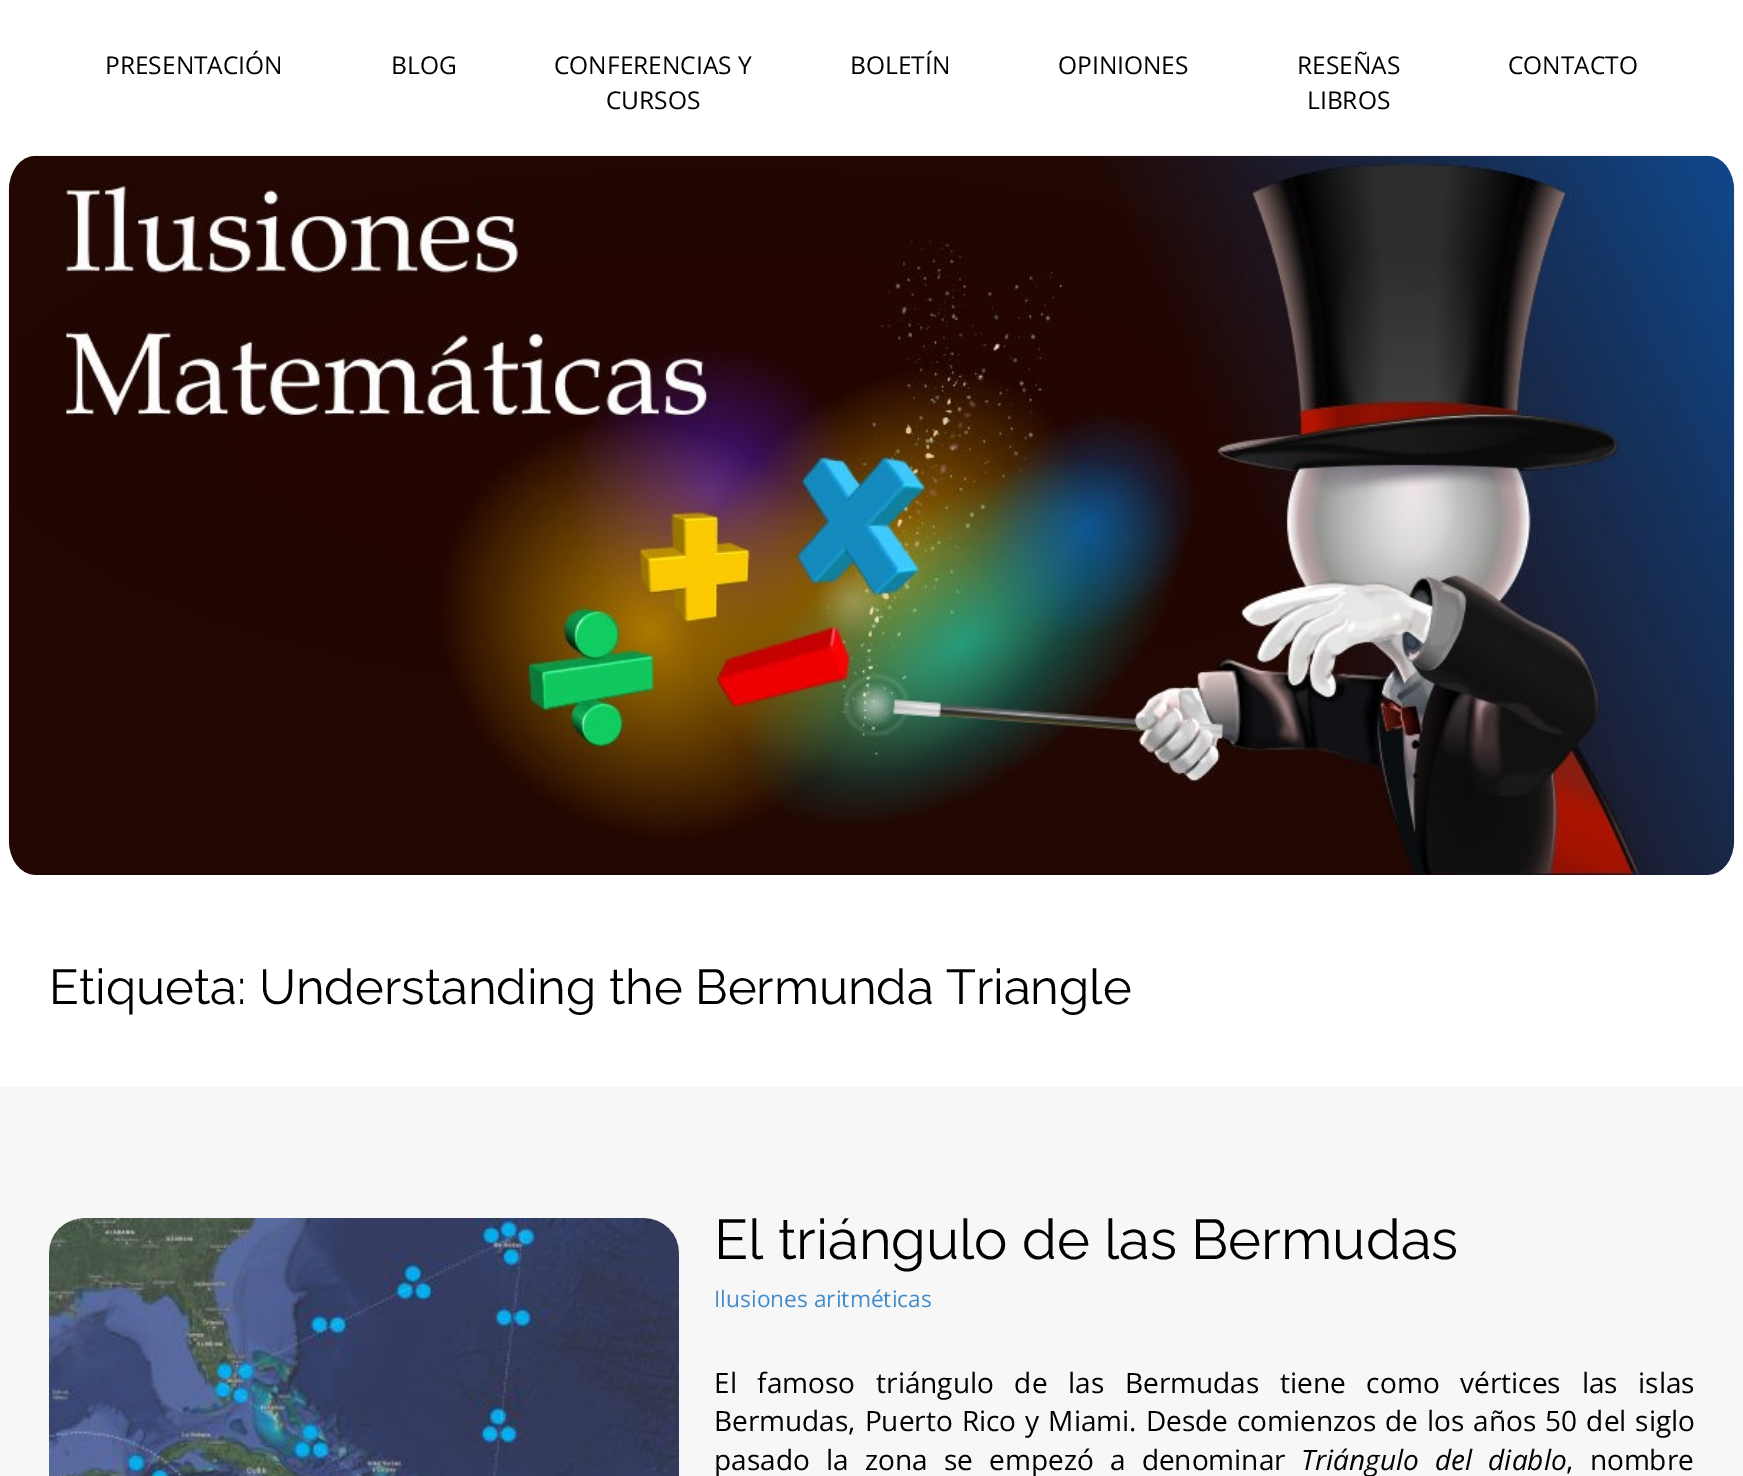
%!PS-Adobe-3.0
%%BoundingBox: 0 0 1743 1476
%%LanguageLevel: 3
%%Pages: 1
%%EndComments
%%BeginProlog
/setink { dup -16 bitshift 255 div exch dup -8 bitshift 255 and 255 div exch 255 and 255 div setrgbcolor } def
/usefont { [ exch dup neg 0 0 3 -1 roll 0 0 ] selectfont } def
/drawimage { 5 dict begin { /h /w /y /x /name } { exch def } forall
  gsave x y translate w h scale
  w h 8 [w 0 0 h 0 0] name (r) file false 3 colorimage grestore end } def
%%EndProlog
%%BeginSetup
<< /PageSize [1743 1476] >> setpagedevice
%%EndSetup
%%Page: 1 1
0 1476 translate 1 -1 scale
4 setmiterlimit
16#FFFFFF setink
0 0 1743 1476 rectfill
/OpenSans-Regular 24.5 usefont
16#000000 setink
[
    [(PRESENTACIÓN) 105 74]
    [(BLOG) 391 74]
    [(CONFERENCIAS Y) 554 74]
    [(CURSOS) 606 109]
    [(BOLETÍN) 850 74]
    [(OPINIONES) 1058 74]
    [(RESEÑAS) 1297 74]
    [(LIBROS) 1307 109]
    [(CONTACTO) 1508 74]
] { aload pop moveto show } forall
(img1.raw) 8 155 1727 720 drawimage
/Raleway-Thin 49 usefont
49 1004 moveto (Etiqueta: Understanding the Bermunda Triangle) show
16#F7F7F7 setink
0 1087 1743 389 rectfill
(img2.raw) 49 1218 630 258 drawimage
/Raleway-Thin 56 usefont
16#000000 setink
714 1259 moveto (El triángulo de las Bermudas) show
/OpenSans-Regular 22.75 usefont
16#428BCA setink
714 1307 moveto (Ilusiones aritméticas) show
/OpenSans-Regular 28 usefont
16#000000 setink
714 1393 moveto 13.5 0 32 (El famoso triángulo de las Bermudas tiene como vértices las islas) widthshow
714 1431 moveto 1.75 0 32 (Bermudas, Puerto Rico y Miami. Desde comienzos de los años 50 del siglo) widthshow
714 1470 moveto 9 0 32 (pasado la zona se empezó a denominar) widthshow
/OpenSans-Italic 28 usefont
1301 1470 moveto 9 0 32 (Triángulo del diablo) widthshow
/OpenSans-Regular 28 usefont
1566 1470 moveto 9 0 32 (, nombre) widthshow
showpage
%%EOF
